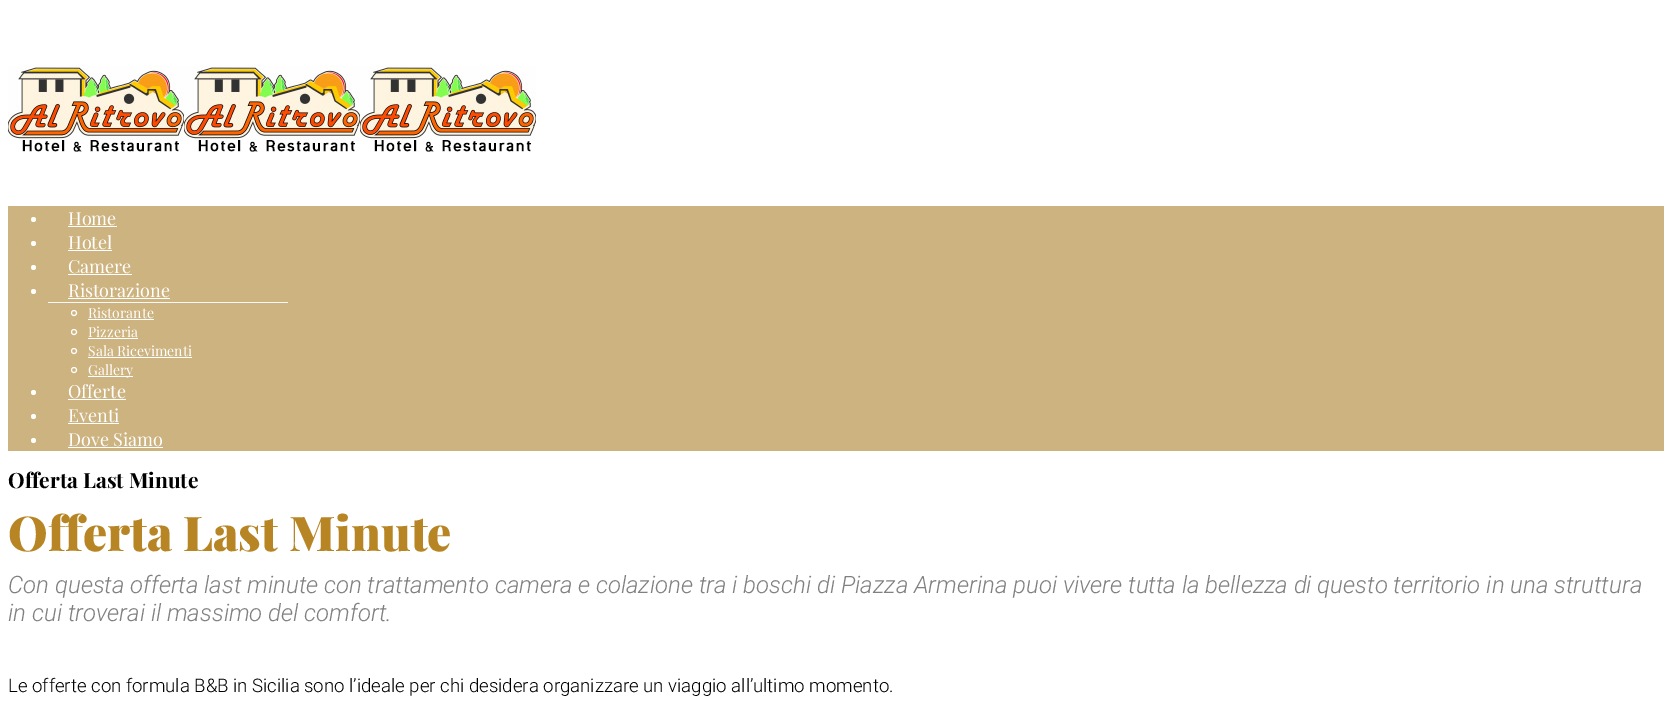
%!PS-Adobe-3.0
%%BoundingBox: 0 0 1672 717
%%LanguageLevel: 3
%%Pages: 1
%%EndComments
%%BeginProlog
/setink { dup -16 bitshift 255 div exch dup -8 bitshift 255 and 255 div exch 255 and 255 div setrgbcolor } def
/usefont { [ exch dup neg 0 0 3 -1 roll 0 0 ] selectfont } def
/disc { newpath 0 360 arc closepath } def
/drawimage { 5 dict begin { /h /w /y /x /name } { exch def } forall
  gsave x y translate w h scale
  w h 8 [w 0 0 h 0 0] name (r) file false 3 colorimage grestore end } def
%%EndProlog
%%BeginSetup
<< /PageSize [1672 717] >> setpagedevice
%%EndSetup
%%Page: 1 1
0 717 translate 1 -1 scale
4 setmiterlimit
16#FFFFFF setink
0 0 1672 717 rectfill
(img1.raw) 8 65 176 87 drawimage
(img1.raw) 184 65 176 87 drawimage
(img1.raw) 360 65 176 87 drawimage
16#CDB380 setink
8 206 1656 245 rectfill
16#FFFFFF setink
33.5 219.5 2.5 disc fill
/PlayfairDisplay-Regular 18 usefont
68 225 moveto (Home) show
68 226 49 1 rectfill
33.5 243.5 2.5 disc fill
68 249 moveto (Hotel) show
68 250 44 1 rectfill
33.5 267.5 2.5 disc fill
68 273 moveto (Camere) show
68 274 64 1 rectfill
33.5 291.5 2.5 disc fill
68 297 moveto (Ristorazione) show
68 298 102 1 rectfill
16#F8F8F8 setink
48 302 240 1 rectfill
16#FFFFFF setink
74 313 2.5 disc stroke
/PlayfairDisplay-Regular 14 usefont
88 318 moveto (Ristorante) show
88 319 66 1 rectfill
74 332 2.5 disc stroke
88 337 moveto (Pizzeria) show
88 338 50 1 rectfill
74 351 2.5 disc stroke
88 356 moveto (Sala Ricevimenti) show
88 357 104 1 rectfill
74 370 2.5 disc stroke
88 376 45 1 rectfill
88 375 moveto (Gallery) show
33.5 392.5 2.5 disc fill
/PlayfairDisplay-Regular 18 usefont
68 398 moveto (Offerte) show
68 399 58 1 rectfill
33.5 416.5 2.5 disc fill
68 422 moveto (Eventi) show
68 423 51 1 rectfill
33.5 440.5 2.5 disc fill
68 446 moveto (Dove Siamo) show
68 447 95 1 rectfill
/PlayfairDisplay-Bold 21 usefont
16#000000 setink
8 488 moveto (Offerta Last Minute) show
/PlayfairDisplay-Black 48 usefont
16#B78524 setink
8 551 moveto (Offerta Last Minute) show
/Roboto-LightItalic 24 usefont
16#808080 setink
8 593 moveto (Con questa offerta last minute con trattamento camera e colazione tra i boschi di Piazza Armerina puoi vivere tutta la bellezza di questo territorio in una struttura) show
8 621 moveto (in cui troverai il massimo del comfort.) show
/Roboto-Light 18.65 usefont
16#000000 setink
8 692 moveto (Le offerte con formula B&B in Sicilia sono l’ideale per chi desidera organizzare un viaggio all’ultimo momento.) show
showpage
%%EOF
